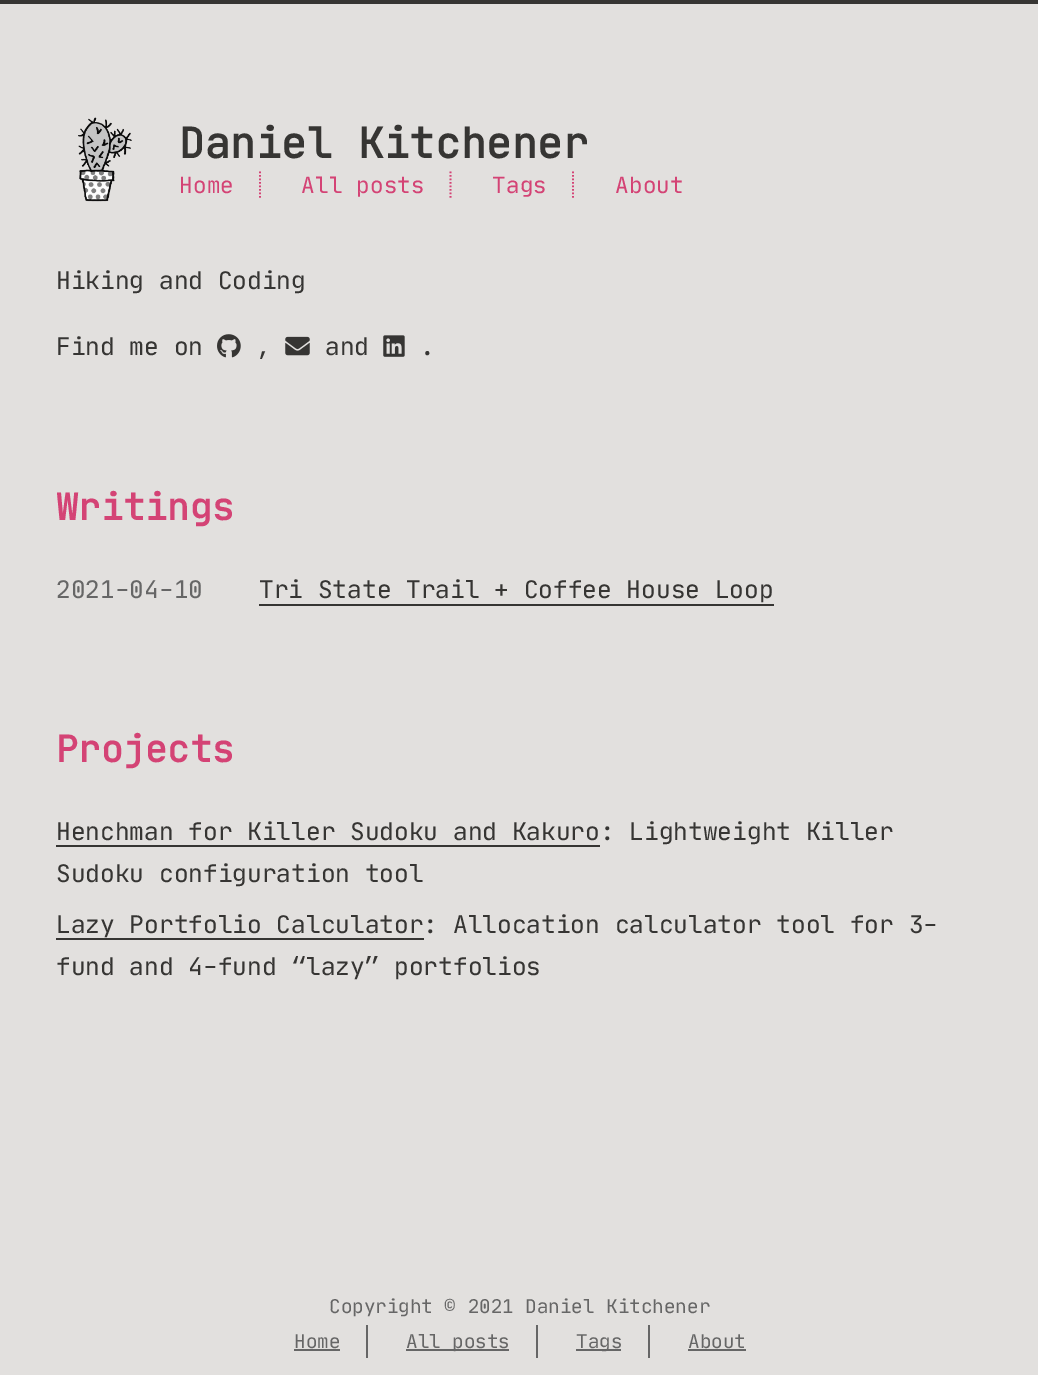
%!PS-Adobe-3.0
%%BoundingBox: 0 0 1038 1375
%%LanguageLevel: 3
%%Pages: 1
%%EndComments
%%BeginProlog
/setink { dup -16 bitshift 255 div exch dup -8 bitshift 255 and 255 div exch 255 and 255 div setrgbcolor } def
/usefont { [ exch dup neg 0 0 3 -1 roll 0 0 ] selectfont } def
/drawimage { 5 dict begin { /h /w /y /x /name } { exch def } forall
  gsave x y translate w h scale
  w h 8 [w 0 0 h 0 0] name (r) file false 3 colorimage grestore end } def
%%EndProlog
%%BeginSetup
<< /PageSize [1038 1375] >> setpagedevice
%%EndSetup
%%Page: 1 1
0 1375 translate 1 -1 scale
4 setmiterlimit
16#E2E0DE setink
0 0 1038 1375 rectfill
16#363533 setink
0 0 1038 4 rectfill
(img1.raw) 78 117 54 85 drawimage
/JetBrainsMono-Bold 42 usefont
179 158 moveto 0.4 0 (Daniel Kitchener) ashow
16#D44375 setink
1.8 setlinewidth
[1.75 1.75] 0 setdash
260 171.5 moveto 260 198 lineto stroke
/JetBrainsMono-Regular 22.5 usefont
179 193 moveto 0.25 0 (Home) ashow
450.5 171.5 moveto 450.5 198 lineto stroke
301 193 moveto 0.25 0 (All posts) ashow
573 171.5 moveto 573 198 lineto stroke
492 193 moveto 0.25 0 (Tags) ashow
615 193 moveto 0.25 0 (About) ashow
/JetBrainsMono-Regular 24.5 usefont
16#363533 setink
56 289 moveto (Hiking and Coding) show
56 355 moveto (Find me on) show
(img2.raw) 217 334 24 24 drawimage
256 355 moveto (,) show
(img3.raw) 285 336 25 20 drawimage
325 355 moveto (and) show
(img4.raw) 383 335 22 22 drawimage
420 355 moveto (.) show
/JetBrainsMono-Bold 36.75 usefont
16#D44375 setink
56 520 moveto 0.25 0 (Writings) ashow
/JetBrainsMono-Regular 24.5 usefont
16#666666 setink
56 598 moveto (2021-04-10) show
16#363533 setink
259 598 moveto (Tri State Trail + Coffee House Loop) show
gsave 259 604 moveto 774 604 lineto 774 606 lineto 259 606 lineto closepath clip newpath
<< /ShadingType 2 /ColorSpace /DeviceRGB /Coords [516 595 516 606] /Extend [true true] /Function << /FunctionType 3 /Domain [0 1] /Functions [<< /FunctionType 2 /Domain [0 1] /C0 [0.886 0.878 0.871] /C1 [0.886 0.878 0.871] /N 1 >> << /FunctionType 2 /Domain [0 1] /C0 [0.212 0.208 0.2] /C1 [0.212 0.208 0.2] /N 1 >>] /Bounds [0.83] /Encode [0 1 0 1] >> >> shfill grestore
/JetBrainsMono-Bold 36.75 usefont
16#D44375 setink
56 762 moveto 0.25 0 (Projects) ashow
/JetBrainsMono-Regular 24.5 usefont
16#363533 setink
56 840 moveto (Henchman for Killer Sudoku and Kakuro: Lightweight Killer) show
gsave 56 845 moveto 600 845 lineto 600 847 lineto 56 847 lineto closepath clip newpath
<< /ShadingType 2 /ColorSpace /DeviceRGB /Coords [328 837 328 847] /Extend [true true] /Function << /FunctionType 3 /Domain [0 1] /Functions [<< /FunctionType 2 /Domain [0 1] /C0 [0.886 0.878 0.871] /C1 [0.886 0.878 0.871] /N 1 >> << /FunctionType 2 /Domain [0 1] /C0 [0.212 0.208 0.2] /C1 [0.212 0.208 0.2] /N 1 >>] /Bounds [0.83] /Encode [0 1 0 1] >> >> shfill grestore
56 882 moveto (Sudoku configuration tool) show
56 933 moveto (Lazy Portfolio Calculator: Allocation calculator tool for 3-) show
gsave 56 938 moveto 424 938 lineto 424 940 lineto 56 940 lineto closepath clip newpath
<< /ShadingType 2 /ColorSpace /DeviceRGB /Coords [240 929 240 940] /Extend [true true] /Function << /FunctionType 3 /Domain [0 1] /Functions [<< /FunctionType 2 /Domain [0 1] /C0 [0.886 0.878 0.871] /C1 [0.886 0.878 0.871] /N 1 >> << /FunctionType 2 /Domain [0 1] /C0 [0.212 0.208 0.2] /C1 [0.212 0.208 0.2] /N 1 >>] /Bounds [0.83] /Encode [0 1 0 1] >> >> shfill grestore
56 975 moveto (fund and 4-fund “lazy” portfolios) show
/JetBrainsMono-Regular 19.25 usefont
16#666666 setink
329 1313 moveto (Copyright © 2021 Daniel Kitchener) show
366 1325 2 33 rectfill
294 1348 moveto (Home) show
[
    [294 1349 46 2 16#666666]
    [536 1325 2 33 16#666666]
    [406 1349 103 2 16#666666]
] { aload pop setink rectfill } forall
406 1348 moveto (All posts) show
648 1325 2 33 rectfill
576 1349 45 2 rectfill
576 1348 moveto (Tags) show
688 1348 moveto (About) show
688 1349 58 2 rectfill
showpage
%%EOF
